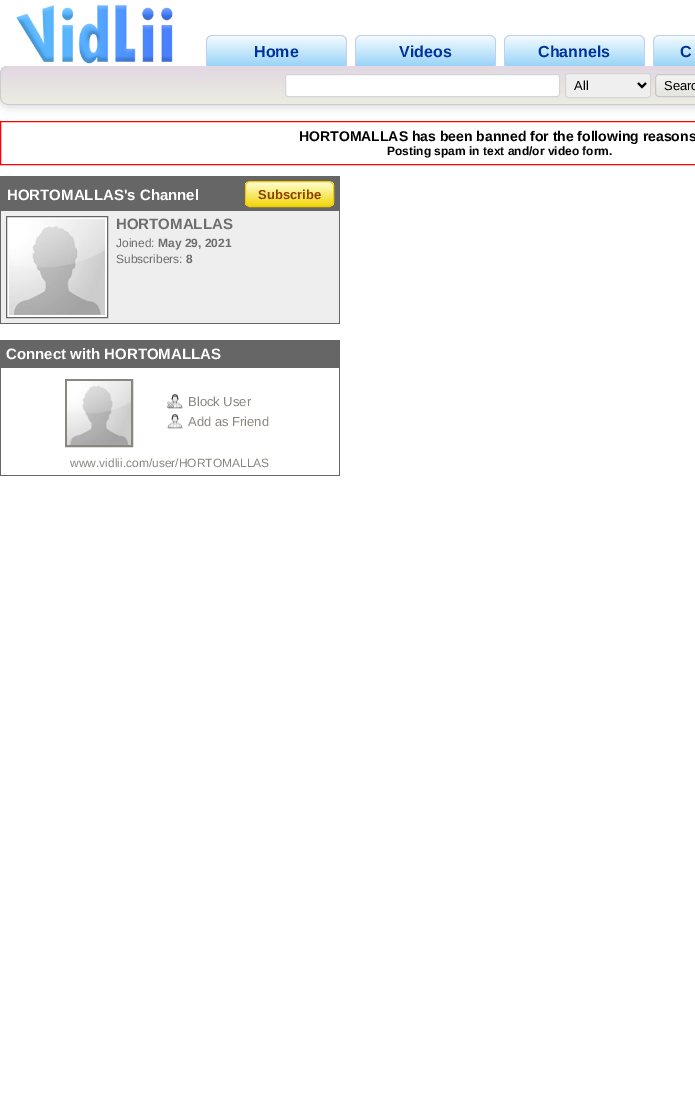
%!PS-Adobe-3.0
%%BoundingBox: 0 0 695 1096
%%LanguageLevel: 3
%%Pages: 1
%%EndComments
%%BeginProlog
/setink { dup -16 bitshift 255 div exch dup -8 bitshift 255 and 255 div exch 255 and 255 div setrgbcolor } def
/usefont { [ exch dup neg 0 0 3 -1 roll 0 0 ] selectfont } def
/setalpha { dup .setfillconstantalpha .setstrokeconstantalpha } def
/rrect { 5 dict begin { /r /h /w /y /x } { exch def } forall
  x r add y moveto x w add y 2 copy h add r arct x w add y h add x 1 index r arct
  x y h add x y r arct x y 2 copy exch w add exch r arct closepath end } def
/softshadow { 12 dict begin { /a /b /q /h /w /y /x } { exch def } forall gsave /was 0 def
  9 -2 -9 { dup b mul 4 div /e exch def 1 sub .425 mul 2.718 exch exp 1 add a .99 .min exch div /now exch def
    1 1 now sub 1 was sub div sub setalpha /was now def
    w h .min e 2 mul add 0 gt { x e sub y e sub w e 2 mul add h e 2 mul add
      q e add b .6 mul add w h .min 2 div e add .min 0 .max rrect fill } if } for grestore end } def
/drawimage { 5 dict begin { /h /w /y /x /name } { exch def } forall
  gsave x y translate w h scale
  w h 8 [w 0 0 h 0 0] name (r) file false 3 colorimage grestore end } def
%%EndProlog
%%BeginSetup
<< /PageSize [695 1096] /PageUsesTransparency true >> setpagedevice
%%EndSetup
%%Page: 1 1
0 .pushpdf14devicefilter
0 1096 translate 1 -1 scale
4 setmiterlimit
16#FFFFFF setink
0 0 695 1096 rectfill
16#FF0000 setink
0.5 121.5 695 43 rectstroke
16#000000 setink
0 2 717 105 8 4.5 0.15 softshadow
16#FFFFFF setink
0 0 moveto 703 0 lineto 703 97 lineto 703 101.5 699.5 105 695 105 curveto 8 105 lineto 3.5 105 0 101.5 0 97 curveto closepath fill
(img1.raw) 16 5 157 59 drawimage
gsave
212 35 moveto 341 35 lineto 344.5 35 347 37.5 347 41 curveto 347 67 lineto 206 67 lineto 206 41 lineto 206 37.5 208.5 35 212 35 curveto closepath clip newpath
gsave 206 36 moveto 347 36 lineto 347 66 lineto 206 66 lineto closepath clip newpath
<< /ShadingType 2 /ColorSpace /DeviceRGB /Coords [277 36 277 67] /Extend [true true] /Function << /FunctionType 2 /Domain [0 1] /C0 [0.957 0.984 1] /C1 [0.588 0.827 0.969] /N 1 >> >> shfill grestore
grestore
16#C2CFEC setink
212 35 moveto 341 35 lineto 344 35 347 38 347 41 curveto 347 67 lineto 206 67 lineto 206 41 lineto 206 38 209 35 212 35 curveto closepath 212 36 moveto 341 36 lineto 344 36 346 38 346 41 curveto 346 67 lineto 207 67 lineto 207 41 lineto 207 38 209 36 212 36 curveto closepath eofill
/LiberationSans-Bold 16 usefont
16#003399 setink
254 57 moveto (Home) show
gsave
361 35 moveto 490 35 lineto 493.5 35 496 37.5 496 41 curveto 496 67 lineto 355 67 lineto 355 41 lineto 355 37.5 357.5 35 361 35 curveto closepath clip newpath
gsave 355 36 moveto 496 36 lineto 496 66 lineto 355 66 lineto closepath clip newpath
<< /ShadingType 2 /ColorSpace /DeviceRGB /Coords [426 36 426 67] /Extend [true true] /Function << /FunctionType 2 /Domain [0 1] /C0 [0.957 0.984 1] /C1 [0.588 0.827 0.969] /N 1 >> >> shfill grestore
grestore
16#C2CFEC setink
361 35 moveto 490 35 lineto 493 35 496 38 496 41 curveto 496 67 lineto 355 67 lineto 355 41 lineto 355 38 358 35 361 35 curveto closepath 361 36 moveto 490 36 lineto 493 36 495 38 495 41 curveto 495 67 lineto 356 67 lineto 356 41 lineto 356 38 358 36 361 36 curveto closepath eofill
16#003399 setink
399 57 moveto (Videos) show
gsave
510 35 moveto 639 35 lineto 642.5 35 645 37.5 645 41 curveto 645 67 lineto 504 67 lineto 504 41 lineto 504 37.5 506.5 35 510 35 curveto closepath clip newpath
gsave 504 36 moveto 645 36 lineto 645 66 lineto 504 66 lineto closepath clip newpath
<< /ShadingType 2 /ColorSpace /DeviceRGB /Coords [575 36 575 67] /Extend [true true] /Function << /FunctionType 2 /Domain [0 1] /C0 [0.957 0.984 1] /C1 [0.588 0.827 0.969] /N 1 >> >> shfill grestore
grestore
16#C2CFEC setink
510 35 moveto 639 35 lineto 642 35 645 38 645 41 curveto 645 67 lineto 504 67 lineto 504 41 lineto 504 38 507 35 510 35 curveto closepath 510 36 moveto 639 36 lineto 642 36 644 38 644 41 curveto 644 67 lineto 505 67 lineto 505 41 lineto 505 38 507 36 510 36 curveto closepath eofill
16#003399 setink
538 57 moveto (Channels) show
gsave
659 35 moveto 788 35 lineto 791.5 35 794 37.5 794 41 curveto 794 67 lineto 653 67 lineto 653 41 lineto 653 37.5 655.5 35 659 35 curveto closepath clip newpath
gsave 653 36 moveto 695 36 lineto 695 66 lineto 653 66 lineto closepath clip newpath
<< /ShadingType 2 /ColorSpace /DeviceRGB /Coords [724 36 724 67] /Extend [true true] /Function << /FunctionType 2 /Domain [0 1] /C0 [0.957 0.984 1] /C1 [0.588 0.827 0.969] /N 1 >> >> shfill grestore
grestore
16#C2CFEC setink
659 35 moveto 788 35 lineto 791 35 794 38 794 41 curveto 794 67 lineto 653 67 lineto 653 41 lineto 653 38 656 35 659 35 curveto closepath 659 36 moveto 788 36 lineto 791 36 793 38 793 41 curveto 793 67 lineto 654 67 lineto 654 41 lineto 654 38 656 36 659 36 curveto closepath eofill
16#003399 setink
680 57 moveto (C) show
gsave
0 66 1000 39 8 rrect clip newpath
gsave 8 66 moveto 695 66 lineto 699.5 66 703 69.5 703 74 curveto 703 104 lineto 0 104 lineto 0 74 lineto 0 69.5 3.5 66 8 66 curveto closepath clip newpath
<< /ShadingType 2 /ColorSpace /DeviceRGB /Coords [500 66 500 104] /Extend [true true] /Function << /FunctionType 3 /Domain [0 1] /Functions [<< /FunctionType 2 /Domain [0 1] /C0 [0.886 0.843 0.886] /C1 [0.886 0.843 0.886] /N 1 >> << /FunctionType 2 /Domain [0 1] /C0 [0.886 0.843 0.886] /C1 [0.925 0.929 0.882] /N 1 >>] /Bounds [0.01] /Encode [0 1 0 1] >> >> shfill grestore
grestore
16#CCCCCC setink
8 66 moveto 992 66 lineto 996 66 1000 70 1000 74 curveto 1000 97 lineto 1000 101 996 105 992 105 curveto 8 105 lineto 4 105 0 101 0 97 curveto 0 74 lineto 0 70 4 66 8 66 curveto closepath 8 66 moveto 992 66 lineto 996 66 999 70 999 74 curveto 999 97 lineto 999 101 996 104 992 104 curveto 8 104 lineto 4 104 1 101 1 97 curveto 1 74 lineto 1 70 4 66 8 66 curveto closepath eofill
16#FFFFFF setink
285.5 74.5 274 22 2.5 rrect gsave fill grestore
16#D5D5D5 setink
stroke
16#EFEFEF setink
565.5 73.5 85 24 2.5 rrect gsave fill grestore
16#D5D5D5 setink
stroke
16#000000 setink
2 setlinewidth
638 83 moveto 642 87 lineto 646 83 lineto stroke
/LiberationSans-Regular 13 usefont
574 90 moveto (All) show
gsave
655 74 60 23 4 rrect clip newpath
gsave 655 75 moveto 695 75 lineto 695 96 lineto 655 96 lineto closepath clip newpath
<< /ShadingType 2 /ColorSpace /DeviceRGB /Coords [685 75 685 96] /Extend [true true] /Function << /FunctionType 2 /Domain [0 1] /C0 [0.957 0.957 0.957] /C1 [0.894 0.898 0.871] /N 1 >> >> shfill grestore
grestore
16#C7C7C7 setink
1 setlinewidth
655.5 74.5 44 22 3.5 rrect stroke
16#000000 setink
664 90 moveto (Searc) show
/LiberationSans-Bold 14 usefont
299 141 moveto (HORTOMALLAS has been banned for the following reasons) show
/LiberationSans-Bold 12 usefont
387 155 moveto (Posting spam in text and/or video form.) show
16#666666 setink
0 176 340 35 rectfill
/LiberationSans-Bold 15 usefont
16#FFFFFF setink
7 200 moveto (HORTOMALLAS's Channel) show
gsave
245 181 89 26 5 rrect clip newpath
gsave 245 182 moveto 334 182 lineto 334 206 lineto 245 206 lineto closepath clip newpath
<< /ShadingType 2 /ColorSpace /DeviceRGB /Coords [290 182 290 206] /Extend [true true] /Function << /FunctionType 3 /Domain [0 1] /Functions [<< /FunctionType 2 /Domain [0 1] /C0 [1 0.984 0.78] /C1 [1 0.984 0.78] /N 1 >> << /FunctionType 2 /Domain [0 1] /C0 [1 0.984 0.78] /C1 [0.949 0.843 0.047] /N 1 >>] /Bounds [0.07] /Encode [0 1 0 1] >> >> shfill grestore
grestore
16#F4C800 setink
245.5 181.5 88 25 4.5 rrect stroke
/LiberationSans-Bold 13 usefont
16#8A4100 setink
258 199 moveto (Subscribe) show
[
    [1 211 338 112 16#EEEEEE]
    [339 211 1 113 16#666666]
    [0 323 340 1 16#666666]
    [0 211 1 113 16#666666]
] { aload pop setink rectfill } forall
16#FFFFFF setink
6.5 216.5 moveto 107.5 216.5 lineto 107.5 317.5 lineto 6.5 317.5 lineto closepath gsave fill grestore
16#666666 setink
stroke
(img2.raw) 9 219 96 96 drawimage
/LiberationSans-Bold 15 usefont
16#6D6D6D setink
116 229 moveto (HORTOMALLAS) show
/LiberationSans-Regular 12 usefont
116 247 moveto (Joined:) show
/LiberationSans-Bold 12 usefont
158 247 moveto (May 29, 2021) show
/LiberationSans-Regular 12 usefont
116 263 moveto (Subscribers:) show
/LiberationSans-Bold 12 usefont
186 263 moveto (8) show
16#666666 setink
0 340 340 28 rectfill
/LiberationSans-Bold 15 usefont
16#FFFFFF setink
6 359 moveto (Connect with HORTOMALLAS) show
[
    [339 368 1 108 16#666666]
    [0 475 340 1 16#666666]
    [0 368 1 108 16#666666]
] { aload pop setink rectfill } forall
16#89857F setink
2 setlinewidth
66 380 66 66 rectstroke
(img3.raw) 67 381 64 64 drawimage
(img4.raw) 167 394 16 15 drawimage
/LiberationSans-Regular 13 usefont
188 406 moveto (Block User) show
(img5.raw) 167 414 16 15 drawimage
188 426 moveto (Add as Friend) show
/LiberationSans-Regular 12 usefont
70 467 moveto (www.vidlii.com/user/HORTOMALLAS) show
.poppdf14devicefilter showpage
%%EOF
